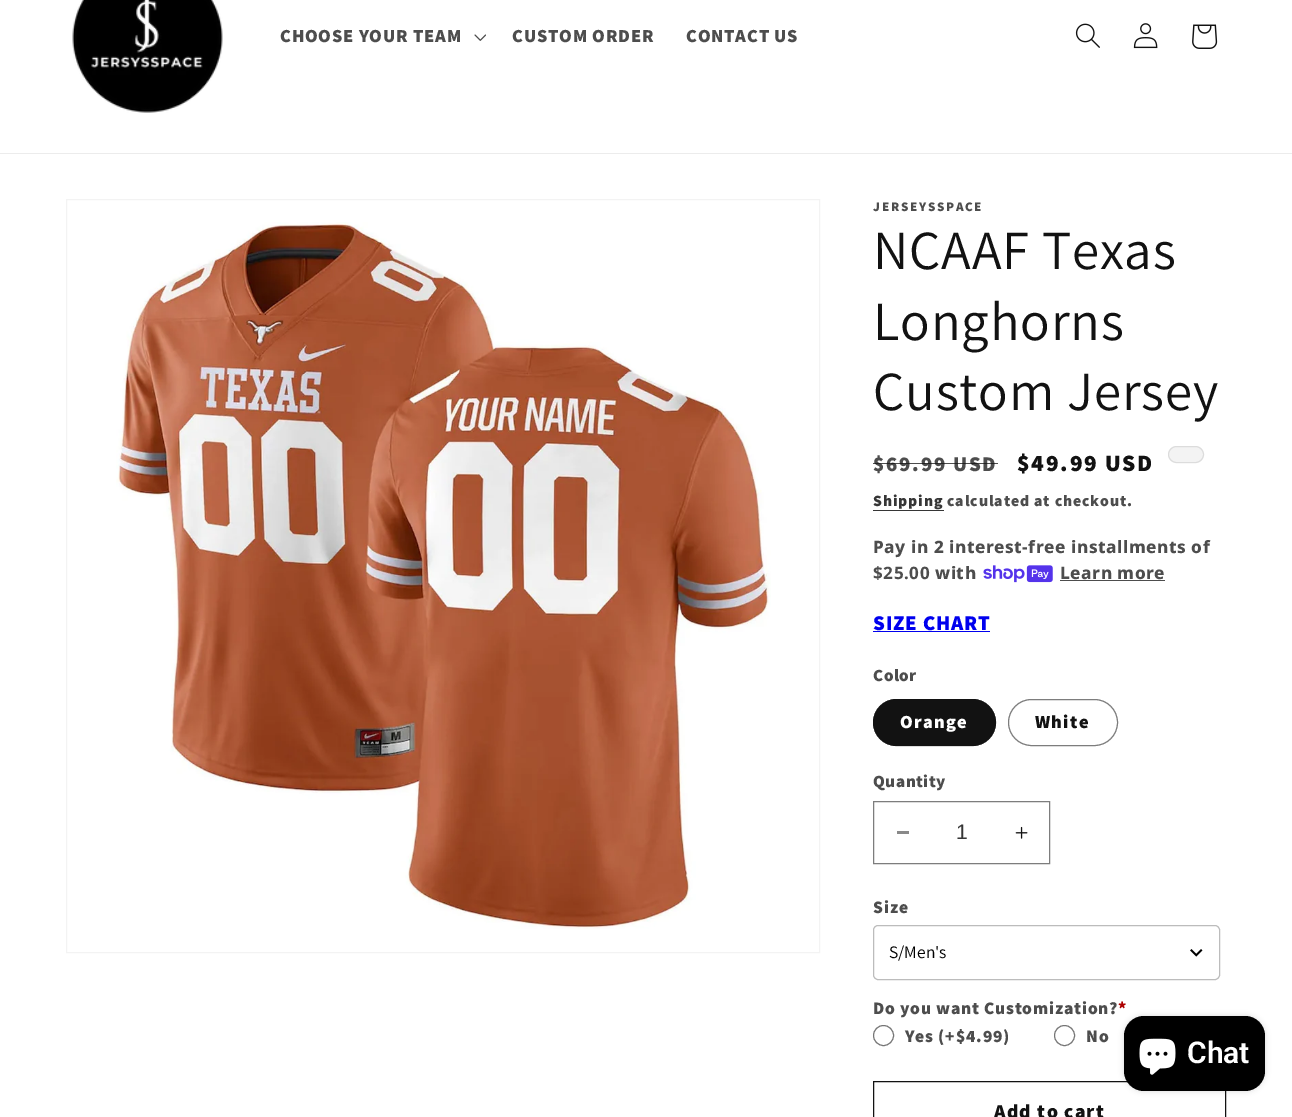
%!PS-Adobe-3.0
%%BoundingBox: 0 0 1292 1117
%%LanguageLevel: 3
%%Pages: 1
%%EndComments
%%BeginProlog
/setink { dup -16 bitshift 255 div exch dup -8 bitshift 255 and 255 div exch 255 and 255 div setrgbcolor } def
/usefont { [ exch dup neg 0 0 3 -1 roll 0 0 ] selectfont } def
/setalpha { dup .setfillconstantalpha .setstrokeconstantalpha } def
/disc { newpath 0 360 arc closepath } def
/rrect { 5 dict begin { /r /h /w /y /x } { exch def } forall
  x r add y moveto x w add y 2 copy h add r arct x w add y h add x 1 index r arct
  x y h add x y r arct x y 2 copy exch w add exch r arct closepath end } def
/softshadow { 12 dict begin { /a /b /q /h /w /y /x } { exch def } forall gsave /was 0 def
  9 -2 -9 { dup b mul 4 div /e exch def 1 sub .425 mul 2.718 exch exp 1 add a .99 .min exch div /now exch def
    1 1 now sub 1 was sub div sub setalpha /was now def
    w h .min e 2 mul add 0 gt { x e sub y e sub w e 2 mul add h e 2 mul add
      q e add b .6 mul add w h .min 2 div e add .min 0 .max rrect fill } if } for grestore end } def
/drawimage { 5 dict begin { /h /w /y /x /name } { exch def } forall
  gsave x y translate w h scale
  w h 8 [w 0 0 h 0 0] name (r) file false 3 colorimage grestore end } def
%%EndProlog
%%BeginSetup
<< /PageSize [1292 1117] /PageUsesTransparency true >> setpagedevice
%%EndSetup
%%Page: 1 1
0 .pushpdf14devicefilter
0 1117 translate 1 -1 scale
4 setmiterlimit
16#FFFFFF setink
0 0 1292 1117 rectfill
16#ECECEC setink
0 153 1292 1 rectfill
(img1.raw) 72 0 151 113 drawimage
/Assistant-ExtraBold 18.4 usefont
16#4D4D4D setink
280 42 moveto 0.8 0 (CHOOSE YOUR TEAM) ashow
(img2.raw) 474 34 12 7 drawimage
512 42 moveto 0.8 0 (CUSTOM ORDER) ashow
686 42 moveto 0.8 0 (CONTACT US) ashow
(img3.raw) 1075 23 25 25 drawimage
(img4.raw) 1133 23 25 26 drawimage
(img5.raw) 1192 24 26 25 drawimage
16#F3F3F3 setink
66.5 199.5 753 753 rectstroke
(img6.raw) 116 222 655 707 drawimage
/Assistant-ExtraBold 13.1 usefont
16#4D4D4D setink
873 211 moveto 1.75 0 (JERSEYSSPACE) ashow
/Assistant-Regular 55 usefont
16#121212 setink
873 269 moveto 0.8 0 (NCAAF Texas) ashow
873 340 moveto 0.8 0 (Longhorns) ashow
873 410 moveto 0.8 0 (Custom Jersey) ashow
/Assistant-ExtraBold 21 usefont
16#4D4D4D setink
873 471 moveto 1.75 0 ($69.99 USD) ashow
0.75 setalpha
16#121212 setink
873 463 125 1 rectfill
/Assistant-ExtraBold 23.5 usefont
1 setalpha
1017 471 moveto 1.75 0 ($49.99 USD) ashow
16#F3F3F3 setink
1168 446 36 17 8.5 rrect fill
0.1 setalpha
16#121212 setink
1168.5 446.5 35 16 8 rrect stroke
/Assistant-ExtraBold 15.75 usefont
1 setalpha
16#363636 setink
873 506 moveto 0.9 0 (Shipping) ashow
873 510 71 1 rectfill
16#4D4D4D setink
947 506 moveto 0.9 0 (calculated at checkout.) ashow
/NotoSans-ExtraBold 17.1 usefont
873 553 moveto 0.55 0 (Pay in 2 interest-free installments of) ashow
/NotoSans-Bold 17.1 usefont
873 579 moveto 0.55 0 ($25.00) ashow
/NotoSans-ExtraBold 17.1 usefont
935 579 moveto 0.55 0 (with) ashow
(img7.raw) 983 565 70 18 drawimage
1060 579 moveto 0.55 0 (Learn more) ashow
1060 580 105 1 rectfill
/Assistant-ExtraBold 21 usefont
16#0000EE setink
873 630 moveto 0.8 0 (SIZE CHART) ashow
873 631 117 1 rectfill
/Assistant-ExtraBold 17.1 usefont
16#4D4D4D setink
873 681 moveto 0.55 0 (Color) ashow
16#121212 setink
873 699 123 47 23.5 rrect fill
0.55 setalpha
873.5 699.5 122 46 23 rrect stroke
/Assistant-ExtraBold 18.4 usefont
1 setalpha
16#FFFFFF setink
900 728 moveto 1.25 0 (Orange) ashow
16#7D7D7D setink
1008.5 699.5 109 46 23 rrect stroke
16#121212 setink
1035 728 moveto 1.25 0 (White) ashow
/Assistant-ExtraBold 17.1 usefont
16#4D4D4D setink
873 787 moveto 0.55 0 (Quantity) ashow
16#898989 setink
897 831 12 3 rectfill
(img8.raw) 1015 826 13 13 drawimage
16#7D7D7D setink
873.5 801.5 176 62 rectstroke
/LiberationSans-Regular 21 usefont
16#363636 setink
956 839 moveto (1) show
/Assistant-ExtraBold 17.5 usefont
16#4D4D4D setink
873 913 moveto 0.8 0 (Size) ashow
(img9.raw) 1190 949 13 8 drawimage
16#BCBCBC setink
873.5 925.5 346 54 4.5 rrect stroke
/Assistant-Regular 17.5 usefont
16#000000 setink
889 958 moveto (S/Men's) show
/Assistant-ExtraBold 17.5 usefont
16#4D4D4D setink
873 1014 moveto 0.8 0 (Do you want Customization?) ashow
16#AD0000 setink
1118 1014 moveto 0.8 0 (*) ashow
16#767676 setink
883.5 1035.5 10 disc stroke
16#4D4D4D setink
905 1042 moveto 0.8 0 (Yes \(+$4.99\)) ashow
16#767676 setink
1064.5 1035.5 10 disc stroke
16#4D4D4D setink
1086 1042 moveto 0.8 0 (No) ashow
16#121212 setink
873.5 1081.5 352 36 rectstroke
/Assistant-ExtraBold 19.75 usefont
994 1118 moveto 1.25 0 (Add to cart) ashow
16#000000 setink
1124 1016 141 75 20 3 0.15 softshadow
1124 1016 141 75 20 rrect fill
(img10.raw) 1139 1038 37 37 drawimage
/Roboto-SemiBold 30 usefont
16#FFFFFF setink
1187 1063 moveto (Chat) show
.poppdf14devicefilter showpage
%%EOF
